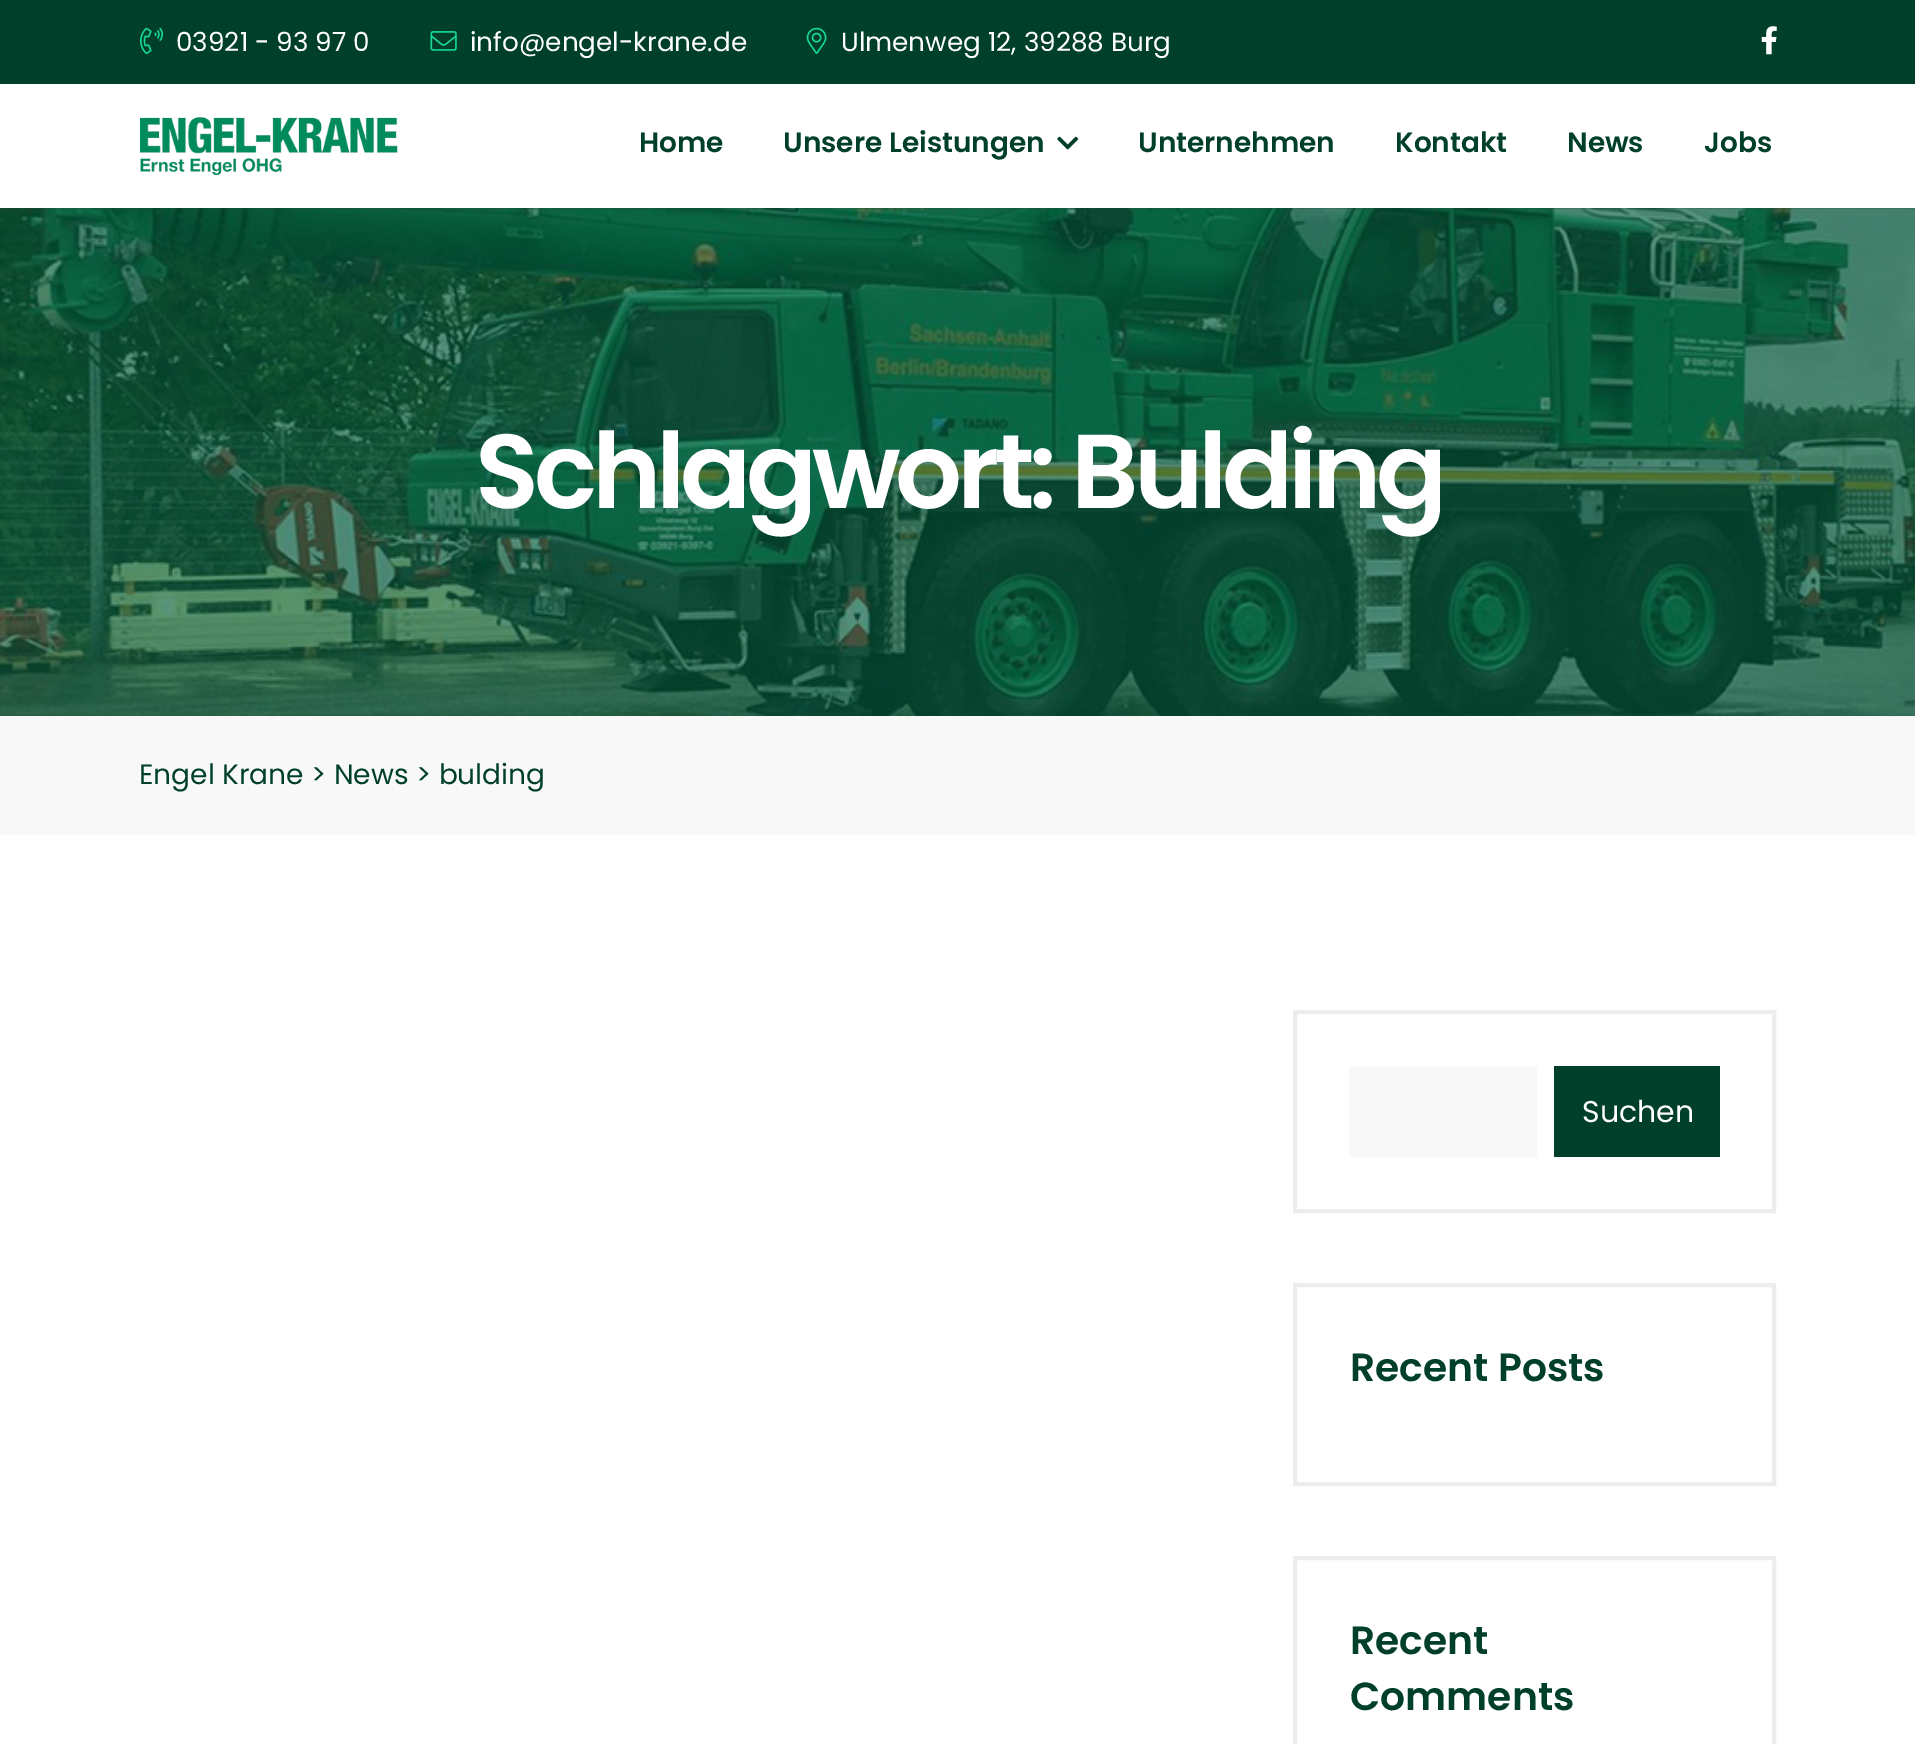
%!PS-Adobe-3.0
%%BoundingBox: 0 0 1915 1744
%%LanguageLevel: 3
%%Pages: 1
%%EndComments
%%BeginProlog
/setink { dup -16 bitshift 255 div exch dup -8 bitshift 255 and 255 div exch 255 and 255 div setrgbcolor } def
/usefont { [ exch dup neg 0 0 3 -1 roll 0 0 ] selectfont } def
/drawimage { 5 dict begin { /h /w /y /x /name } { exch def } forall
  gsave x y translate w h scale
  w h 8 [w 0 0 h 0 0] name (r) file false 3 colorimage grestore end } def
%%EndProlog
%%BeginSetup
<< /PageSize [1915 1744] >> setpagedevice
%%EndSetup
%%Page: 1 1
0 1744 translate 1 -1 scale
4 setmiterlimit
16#FFFFFF setink
0 0 1915 1744 rectfill
16#00402A setink
0 0 1915 84 rectfill
(img1.raw) 140 27 23 28 drawimage
/Poppins-Regular 26.25 usefont
16#FFFFFF setink
176 51 moveto (03921 - 93 97 0) show
(img2.raw) 430 31 27 20 drawimage
470 51 moveto (info@engel-krane.de) show
(img3.raw) 806 27 21 27 drawimage
841 51 moveto (Ulmenweg 12, 39288 Burg) show
(img4.raw) 1761 26 16 29 drawimage
(img5.raw) 140 117 258 58 drawimage
/Poppins-SemiBold 28 usefont
16#00402A setink
639 152 moveto (Home) show
783 152 moveto (Unsere Leistungen) show
(img6.raw) 1057 136 22 14 drawimage
[
    [(Unternehmen) 1138 152]
    [(Kontakt) 1395 152]
    [(News) 1567 152]
    [(Jobs) 1704 152]
] { aload pop moveto show } forall
(img7.raw) 0 208 1915 508 drawimage
/Poppins-SemiBold 105 usefont
16#FFFFFF setink
475 508 moveto -5.25 0 (Schlagwort: Bulding) ashow
16#F8F8F8 setink
0 716 1915 119 rectfill
/Poppins-Regular 28 usefont
16#00402A setink
[
    [(Engel Krane) 139 784]
    [(> News) 311 784]
    [(> bulding) 416 784]
] { aload pop moveto show } forall
16#EDEDED setink
4 setlinewidth
1295 1012 479 199 rectstroke
16#F8F8F8 setink
1349 1066 188 91 rectfill
16#00402A setink
1554 1066 166 91 rectfill
/Poppins-Regular 30 usefont
16#FFFFFF setink
1582 1122 moveto (Suchen) show
16#EDEDED setink
1295 1285 479 199 rectstroke
/Poppins-SemiBold 39.25 usefont
16#00402A setink
1350 1381 moveto (Recent Posts) show
16#EDEDED setink
1295 1558 479 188 rectstroke
16#00402A setink
1350 1654 moveto (Recent) show
1350 1710 moveto (Comments) show
showpage
%%EOF
